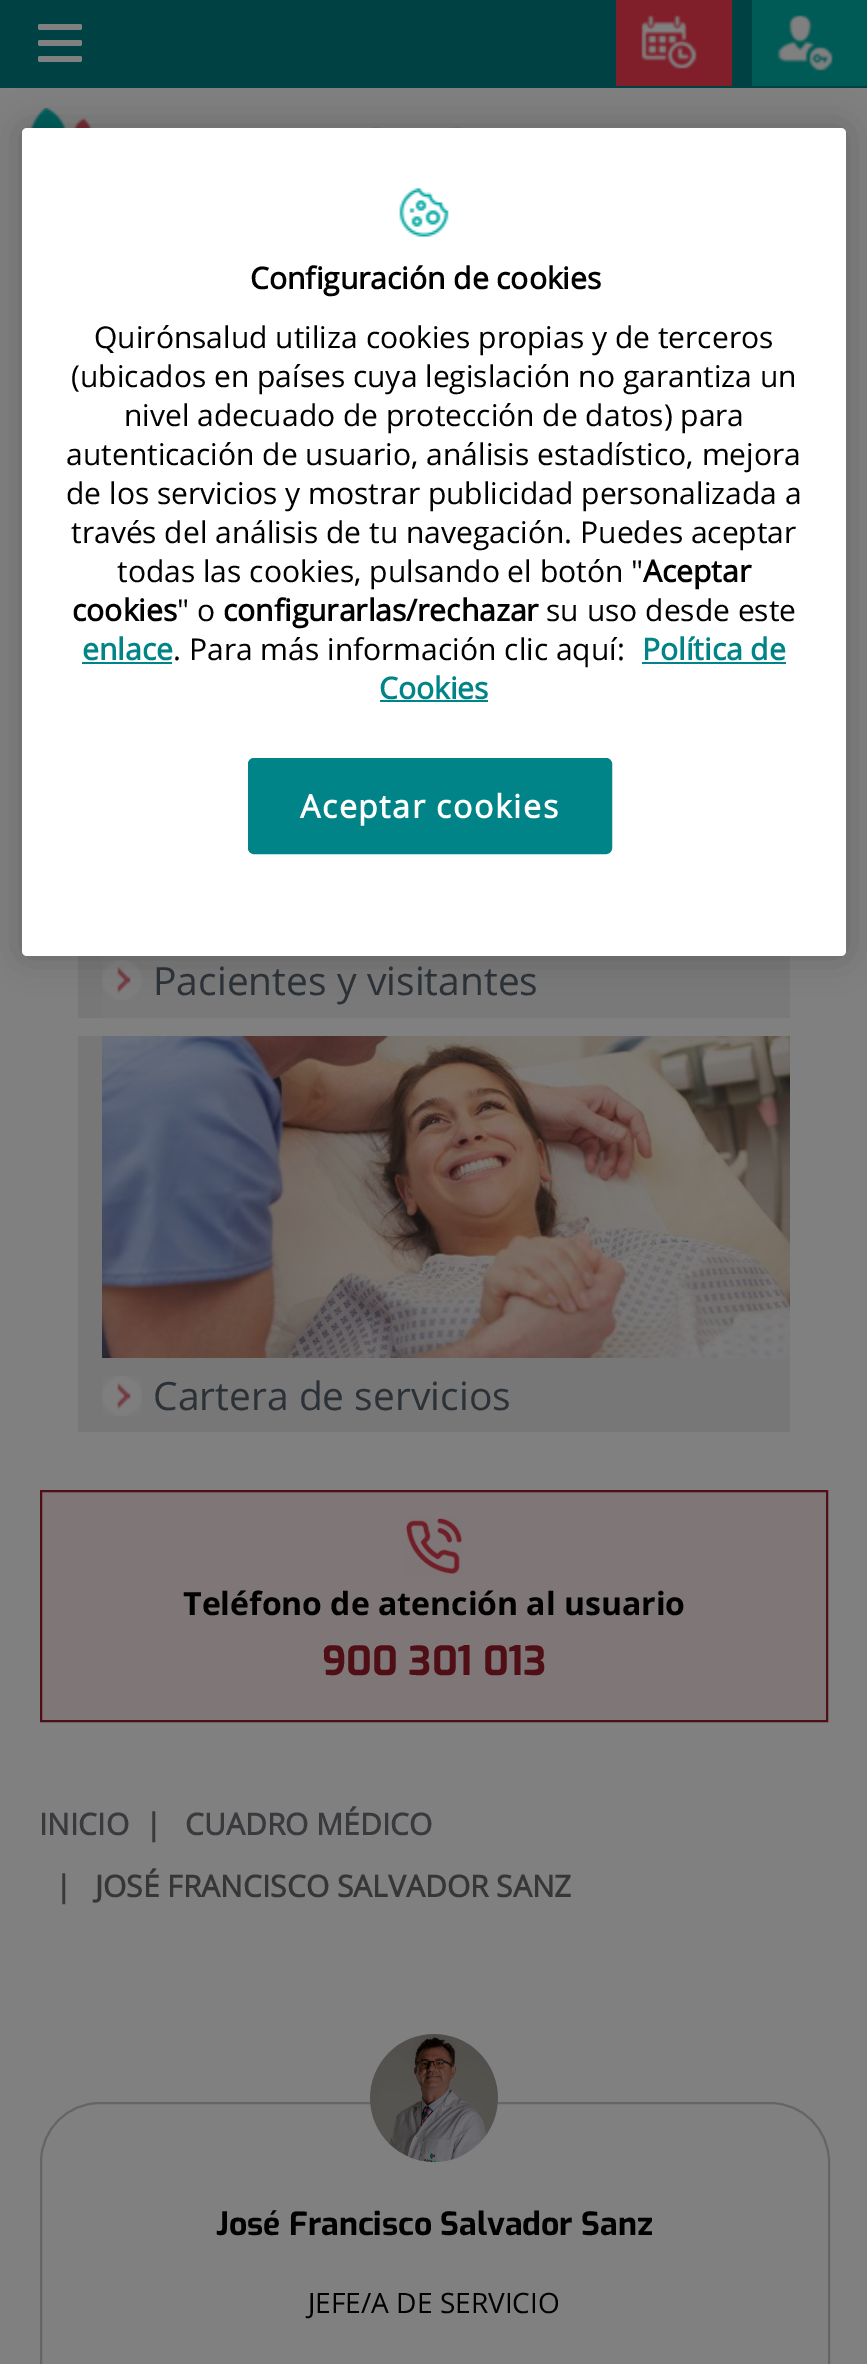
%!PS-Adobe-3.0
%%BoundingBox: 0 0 867 2364
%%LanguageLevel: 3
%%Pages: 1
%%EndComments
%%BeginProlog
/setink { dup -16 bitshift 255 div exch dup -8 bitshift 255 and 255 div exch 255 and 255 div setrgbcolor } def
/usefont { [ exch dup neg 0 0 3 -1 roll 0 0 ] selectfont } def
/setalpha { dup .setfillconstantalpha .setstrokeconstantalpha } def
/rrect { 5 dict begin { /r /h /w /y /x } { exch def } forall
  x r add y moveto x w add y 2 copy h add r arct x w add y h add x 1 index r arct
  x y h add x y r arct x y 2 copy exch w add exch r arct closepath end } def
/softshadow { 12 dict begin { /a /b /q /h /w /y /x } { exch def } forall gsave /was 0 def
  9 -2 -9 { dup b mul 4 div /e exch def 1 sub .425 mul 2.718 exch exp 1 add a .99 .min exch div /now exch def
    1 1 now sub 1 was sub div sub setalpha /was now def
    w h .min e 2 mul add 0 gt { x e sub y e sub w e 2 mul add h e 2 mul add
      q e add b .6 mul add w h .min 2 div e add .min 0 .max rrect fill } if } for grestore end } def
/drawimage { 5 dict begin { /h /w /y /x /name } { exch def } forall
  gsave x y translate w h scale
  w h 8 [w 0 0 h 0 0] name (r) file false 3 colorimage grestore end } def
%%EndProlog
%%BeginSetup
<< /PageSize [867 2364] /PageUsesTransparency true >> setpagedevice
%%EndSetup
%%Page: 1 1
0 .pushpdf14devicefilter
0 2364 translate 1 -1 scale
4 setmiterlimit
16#808080 setink
0 0 867 2364 rectfill
[
    [0 0 867 88 16#004244]
    [616 0 116 86 16#801E2A]
    [752 0 115 86 16#005A55]
] { aload pop setink rectfill } forall
(img4.raw) 30 108 432 20 drawimage
16#777777 setink
78 956 24 62 rectfill
16#797979 setink
102 956 688 62 rectfill
(img5.raw) 102 960 40 40 drawimage
16#000000 setink
22 128 824 828 5 18 0.2 softshadow
16#FFFFFF setink
22 128 824 828 5 rrect fill
(img1.raw) 399 188 50 49 drawimage
/OpenSans-Bold 30 usefont
16#000000 setink
250 289 moveto (Configuración de cookies) show
/OpenSans-Regular 30 usefont
[
    [(Quirónsalud utiliza cookies propias y de terceros) 94 348]
    [(\(ubicados en países cuya legislación no garantiza un) 71 387]
    [(nivel adecuado de protección de datos\) para) 124 426]
    [(autenticación de usuario, análisis estadístico, mejora) 66 465]
    [(de los servicios y mostrar publicidad personalizada a) 66 504]
    [(través del análisis de tu navegación. Puedes aceptar) 71 543]
    [(todas las cookies, pulsando el botón ") 117 582]
] { aload pop moveto show } forall
/OpenSans-Bold 30 usefont
643 582 moveto (Aceptar) show
72 621 moveto (cookies) show
/OpenSans-Regular 30 usefont
177 621 moveto (" o) show
/OpenSans-Bold 30 usefont
223 621 moveto (configurarlas/rechazar) show
/OpenSans-Regular 30 usefont
546 621 moveto (su uso desde este) show
/OpenSans-Bold 30 usefont
16#008488 setink
82 660 moveto (enlace) show
82 662 90 2 rectfill
/OpenSans-Regular 30 usefont
16#000000 setink
173 660 moveto (. Para más información clic aquí:) show
/OpenSans-Bold 30 usefont
16#008488 setink
642 660 moveto (Política de) show
642 662 144 2 rectfill
379 699 moveto (Cookies) show
380 700 108 2 rectfill
249 759 362 94 5 rrect gsave fill grestore
2 setlinewidth
stroke
/OpenSans-Bold 32 usefont
16#FFFFFF setink
300 818 moveto 1.6 0 (Aceptar cookies) ashow
16#808080 setink
38 24 44 6 2 rrect fill
38 40 44 6 2 rrect fill
38 56 44 6 2 rrect fill
(img2.raw) 641 15 56 54 drawimage
(img3.raw) 777 15 56 56 drawimage
/OpenSans-Regular 39 usefont
16#2B3136 setink
153 995 moveto (Pacientes y visitantes) show
16#777777 setink
78 1036 712 396 rectfill
(img6.raw) 102 1036 688 322 drawimage
(img5.raw) 102 1376 40 40 drawimage
16#2B3136 setink
153 1410 moveto (Cartera de servicios) show
16#7E7677 setink
41 1491 moveto 827 1491 lineto 827 1721 lineto 41 1721 lineto closepath gsave fill grestore
16#500F17 setink
stroke
(img7.raw) 406 1518 57 57 drawimage
/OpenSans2-Bold 32 usefont
16#000000 setink
183 1615 moveto (Teléfono de atención al usuario) show
/Exo-Bold 40 usefont
16#500F17 setink
322 1675 moveto (900 301 013) show
/OpenSans-Bold 30 usefont
16#383A3D setink
[
    [(INICIO) 39 1835]
    [(|) 145 1835]
    [(CUADRO MÉDICO) 185 1835]
    [(|) 55 1897]
] { aload pop moveto show } forall
16#363636 setink
95 1897 moveto (JOSÉ FRANCISCO SALVADOR SANZ) show
16#656565 setink
41 2103 788 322 59 rrect stroke
(img8.raw) 370 2034 128 128 drawimage
/Exo-Bold 32 usefont
16#000000 setink
216 2235 moveto (José Francisco Salvador Sanz) show
/OpenSans-Regular 28 usefont
308 2313 moveto (JEFE/A DE SERVICIO) show
.poppdf14devicefilter showpage
%%EOF
